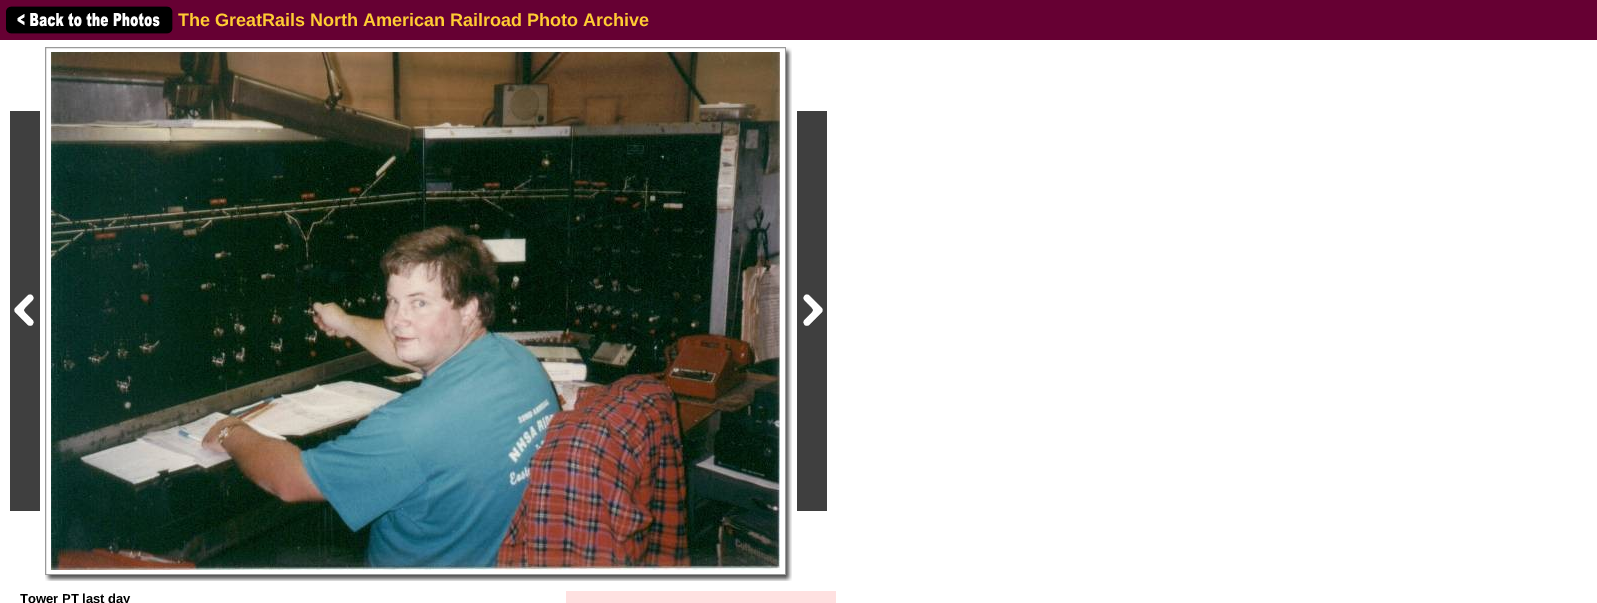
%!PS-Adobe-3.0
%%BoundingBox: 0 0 1597 603
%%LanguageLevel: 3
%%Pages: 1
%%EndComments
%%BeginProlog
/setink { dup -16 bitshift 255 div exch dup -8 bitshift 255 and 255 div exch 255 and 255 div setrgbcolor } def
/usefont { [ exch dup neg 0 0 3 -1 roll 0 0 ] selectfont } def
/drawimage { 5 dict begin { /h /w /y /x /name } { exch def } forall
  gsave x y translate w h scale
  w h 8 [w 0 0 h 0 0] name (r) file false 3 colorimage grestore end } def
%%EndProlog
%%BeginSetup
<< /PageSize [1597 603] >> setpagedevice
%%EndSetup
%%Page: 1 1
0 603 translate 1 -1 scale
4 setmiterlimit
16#FFFFFF setink
0 0 1597 603 rectfill
16#660033 setink
0 0 1597 40 rectfill
(img1.raw) 6 6 167 28 drawimage
/LiberationSans-Bold 18 usefont
16#FFCC33 setink
178 26 moveto (The GreatRails North American Railroad Photo Archive) show
(img2.raw) 10 111 30 400 drawimage
16#9A9A9A setink
45.5 47.5 740 527 rectstroke
(img3.raw) 51 52 729 518 drawimage
(img4.raw) 786 47 6 528 drawimage
(img5.raw) 797 111 30 400 drawimage
(img6.raw) 45 575 741 6 drawimage
(img7.raw) 786 575 6 6 drawimage
/LiberationSans-Bold 13 usefont
16#000000 setink
20 603 moveto (Tower PT last day) show
16#FFE0E0 setink
566 591 270 12 rectfill
showpage
%%EOF
